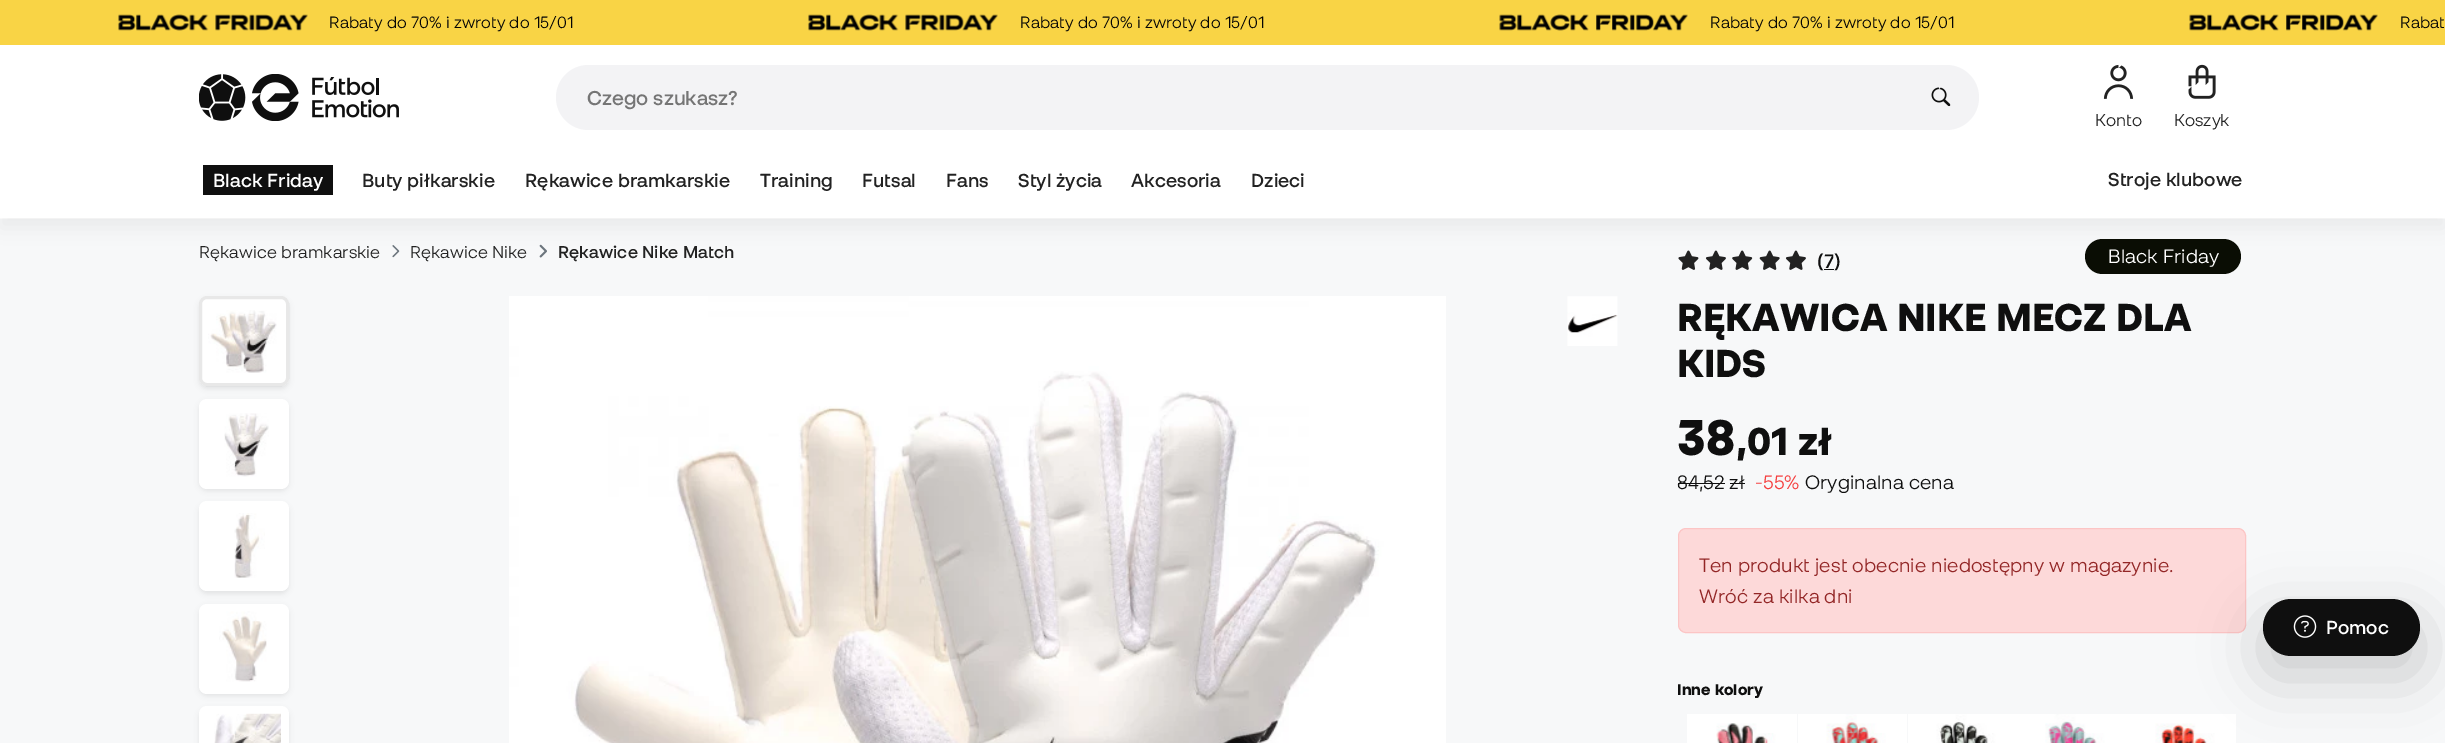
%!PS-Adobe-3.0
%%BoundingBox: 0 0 2445 743
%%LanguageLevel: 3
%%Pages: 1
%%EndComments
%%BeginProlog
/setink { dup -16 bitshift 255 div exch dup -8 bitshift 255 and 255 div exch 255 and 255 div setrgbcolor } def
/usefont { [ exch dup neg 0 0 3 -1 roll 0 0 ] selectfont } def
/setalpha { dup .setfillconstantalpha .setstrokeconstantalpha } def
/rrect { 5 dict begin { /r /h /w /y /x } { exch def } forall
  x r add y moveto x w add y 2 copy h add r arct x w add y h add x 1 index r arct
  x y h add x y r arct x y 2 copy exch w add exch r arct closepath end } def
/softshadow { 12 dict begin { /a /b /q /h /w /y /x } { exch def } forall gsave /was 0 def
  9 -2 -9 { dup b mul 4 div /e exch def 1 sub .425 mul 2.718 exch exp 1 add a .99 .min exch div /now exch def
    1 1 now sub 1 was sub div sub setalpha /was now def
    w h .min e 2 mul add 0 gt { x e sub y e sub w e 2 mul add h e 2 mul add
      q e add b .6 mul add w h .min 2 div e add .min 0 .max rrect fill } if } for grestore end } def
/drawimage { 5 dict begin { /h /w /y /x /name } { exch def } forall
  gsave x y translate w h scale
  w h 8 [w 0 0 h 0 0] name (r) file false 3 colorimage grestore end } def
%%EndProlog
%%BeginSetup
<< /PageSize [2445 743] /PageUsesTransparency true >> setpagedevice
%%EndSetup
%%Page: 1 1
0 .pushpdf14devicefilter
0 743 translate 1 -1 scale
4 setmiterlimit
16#FFFFFF setink
0 0 2445 743 rectfill
16#F7F8F9 setink
0 219 2445 524 rectfill
(img8.raw) 392 245 8 13 drawimage
(img9.raw) 539 244 8 14 drawimage
(img17.raw) 1678 250 21 20 drawimage
(img18.raw) 1705 250 21 20 drawimage
(img19.raw) 1732 250 21 20 drawimage
(img20.raw) 1759 250 21 20 drawimage
(img18.raw) 1785 250 21 20 drawimage
16#0A0D04 setink
2085 239 156 35 17.5 rrect fill
16#000000 setink
0 10 2445 218 0 10 0.05 softshadow
16#FFFFFF setink
0 45 2445 173 rectfill
16#F9D445 setink
0 0 2445 45 rectfill
(img1.raw) 118 14 190 17 drawimage
/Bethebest-Regular 16.25 usefont
16#050505 setink
329 28 moveto 0.1 0 (Rabaty do 70% i zwroty do 15/01) ashow
(img1.raw) 808 14 190 17 drawimage
1020 28 moveto 0.1 0 (Rabaty do 70% i zwroty do 15/01) ashow
(img2.raw) 1499 14 189 17 drawimage
1710 28 moveto 0.1 0 (Rabaty do 70% i zwroty do 15/01) ashow
(img3.raw) 2189 14 189 17 drawimage
2400 28 moveto 0.1 0 (Rabat) ashow
(img4.raw) 199 74 200 47 drawimage
16#F3F3F5 setink
556 65 1423 65 32.5 rrect fill
/Bethebest-SemiBold 20 usefont
16#757575 setink
587 105 moveto (Czego szukasz?) show
(img5.raw) 1931 87 20 20 drawimage
(img6.raw) 2103 64 31 35 drawimage
/Bethebest-Regular 17 usefont
16#222222 setink
2095 126 moveto (Konto) show
(img7.raw) 2188 64 28 35 drawimage
2174 126 moveto (Koszyk) show
16#0F0F0F setink
203 165 130 30 rectfill
/Bethebest-SemiBold 18.75 usefont
16#FFFFFF setink
213 187 moveto 0.1 0 (Black Friday) ashow
16#222222 setink
362 187 moveto 0.1 0 (Buty piłkarskie) ashow
525 187 moveto 0.1 0 (Rękawice bramkarskie) ashow
760 187 moveto 0.1 0 (Training) ashow
862 187 moveto 0.1 0 (Futsal) ashow
946 187 moveto 0.1 0 (Fans) ashow
1018 187 moveto 0.1 0 (Styl życia) ashow
1131 187 moveto 0.1 0 (Akcesoria) ashow
1251 187 moveto 0.1 0 (Dzieci) ashow
2108 186 moveto 0.1 0 (Stroje klubowe) ashow
/Bethebest-Regular 17 usefont
199 258 moveto 0.1 0 (Rękawice bramkarskie) ashow
410 258 moveto 0.1 0 (Rękawice Nike) ashow
/Bethebest-SemiBold 17 usefont
558 258 moveto 0.1 0 (Rękawice Nike Match) ashow
gsave
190 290 moveto 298 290 lineto 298 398 lineto 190 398 lineto closepath 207 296 moveto 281 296 lineto 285.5 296 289 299.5 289 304 curveto 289 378 lineto 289 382.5 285.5 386 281 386 curveto 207 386 lineto 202.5 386 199 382.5 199 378 curveto 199 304 lineto 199 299.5 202.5 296 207 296 curveto closepath eoclip newpath
16#000000 setink
199 299 90 90 8 2.5 0.07 softshadow
grestore
16#FFFFFF setink
199 296 90 90 8 rrect fill
0.1 setalpha
16#222222 setink
3 setlinewidth
200.5 297.5 87 87 6.5 rrect stroke
1 setalpha
(img10.raw) 208 310 69 63 drawimage
gsave
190 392 moveto 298 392 lineto 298 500 lineto 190 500 lineto closepath 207 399 moveto 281 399 lineto 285.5 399 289 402.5 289 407 curveto 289 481 lineto 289 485.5 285.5 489 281 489 curveto 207 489 lineto 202.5 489 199 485.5 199 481 curveto 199 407 lineto 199 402.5 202.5 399 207 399 curveto closepath eoclip newpath
16#000000 setink
199 401 90 90 8 2.5 0.07 softshadow
grestore
16#FFFFFF setink
199 399 90 90 8 rrect fill
(img11.raw) 224 413 45 64 drawimage
gsave
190 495 moveto 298 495 lineto 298 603 lineto 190 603 lineto closepath 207 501 moveto 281 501 lineto 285.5 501 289 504.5 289 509 curveto 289 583 lineto 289 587.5 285.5 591 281 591 curveto 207 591 lineto 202.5 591 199 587.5 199 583 curveto 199 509 lineto 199 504.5 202.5 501 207 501 curveto closepath eoclip newpath
16#000000 setink
199 504 90 90 8 2.5 0.07 softshadow
grestore
199 501 90 90 8 rrect fill
(img12.raw) 234 513 31 65 drawimage
gsave
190 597 moveto 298 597 lineto 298 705 lineto 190 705 lineto closepath 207 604 moveto 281 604 lineto 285.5 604 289 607.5 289 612 curveto 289 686 lineto 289 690.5 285.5 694 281 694 curveto 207 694 lineto 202.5 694 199 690.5 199 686 curveto 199 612 lineto 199 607.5 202.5 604 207 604 curveto closepath eoclip newpath
16#000000 setink
199 606 90 90 8 2.5 0.07 softshadow
grestore
199 604 90 90 8 rrect fill
(img13.raw) 219 611 48 71 drawimage
16#000000 setink
199 709 90 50 8 2.5 0.07 softshadow
16#FFFFFF setink
199 706 90 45 8 rrect fill
(img14.raw) 214 713 67 30 drawimage
(img15.raw) 509 296 937 447 drawimage
(img16.raw) 1567 296 51 50 drawimage
/Bethebest-SemiBold 19.4 usefont
16#0F0F0F setink
1817 268 moveto 0.1 0 (\(7\)) ashow
1824 269 10 1 rectfill
/Bethebest-Regular 19.4 usefont
16#FFFFFF setink
2108 263 moveto 0.1 0 (Black Friday) ashow
/Bethebest-Bold 38.75 usefont
16#0F0F0F setink
1677 331 moveto 0.1 0 (RĘKAWICA NIKE MECZ DLA) ashow
1677 377 moveto 0.1 0 (KIDS) ashow
/Bethebest-Bold 50 usefont
1677 455 moveto 0.1 0 (38) ashow
/Bethebest-Bold 38.75 usefont
1736 455 moveto 0.1 0 (,01 zł) ashow
/Bethebest-Regular 19.4 usefont
1677 489 moveto 0.1 0 (84,52 zł) ashow
1678 483 47 1 rectfill
1730 483 15 1 rectfill
16#F53F3F setink
1755 489 moveto 0.1 0 (-55%) ashow
16#0F0F0F setink
1805 489 moveto 0.1 0 (Oryginalna cena) ashow
16#FDD9D9 setink
1678.5 528.5 567 104 7.5 rrect gsave fill grestore
16#FCC5C5 setink
1 setlinewidth
stroke
16#932626 setink
1699 572 moveto 0.1 0 (Ten produkt jest obecnie niedostępny w magazynie.) ashow
1699 603 moveto 0.1 0 (Wróć za kilka dni) ashow
/Bethebest-Bold 15.5 usefont
16#0F0F0F setink
1677 695 moveto 0.1 0 (Inne kolory) ashow
(img21.raw) 1687 714 110 29 drawimage
(img22.raw) 1798 714 109 29 drawimage
(img23.raw) 1908 714 108 29 drawimage
(img24.raw) 2016 714 110 29 drawimage
(img25.raw) 2126 714 110 29 drawimage
16#000000 setink
2263 619 157 57 28.5 30 0.18 softshadow
16#0F0F0F setink
2263 599 157 57 28.5 rrect fill
(img26.raw) 2293 615 24 23 drawimage
/Bethebest-SemiBold 18.75 usefont
16#FFFFFF setink
2326 634 moveto (Pomoc) show
.poppdf14devicefilter showpage
%%EOF
